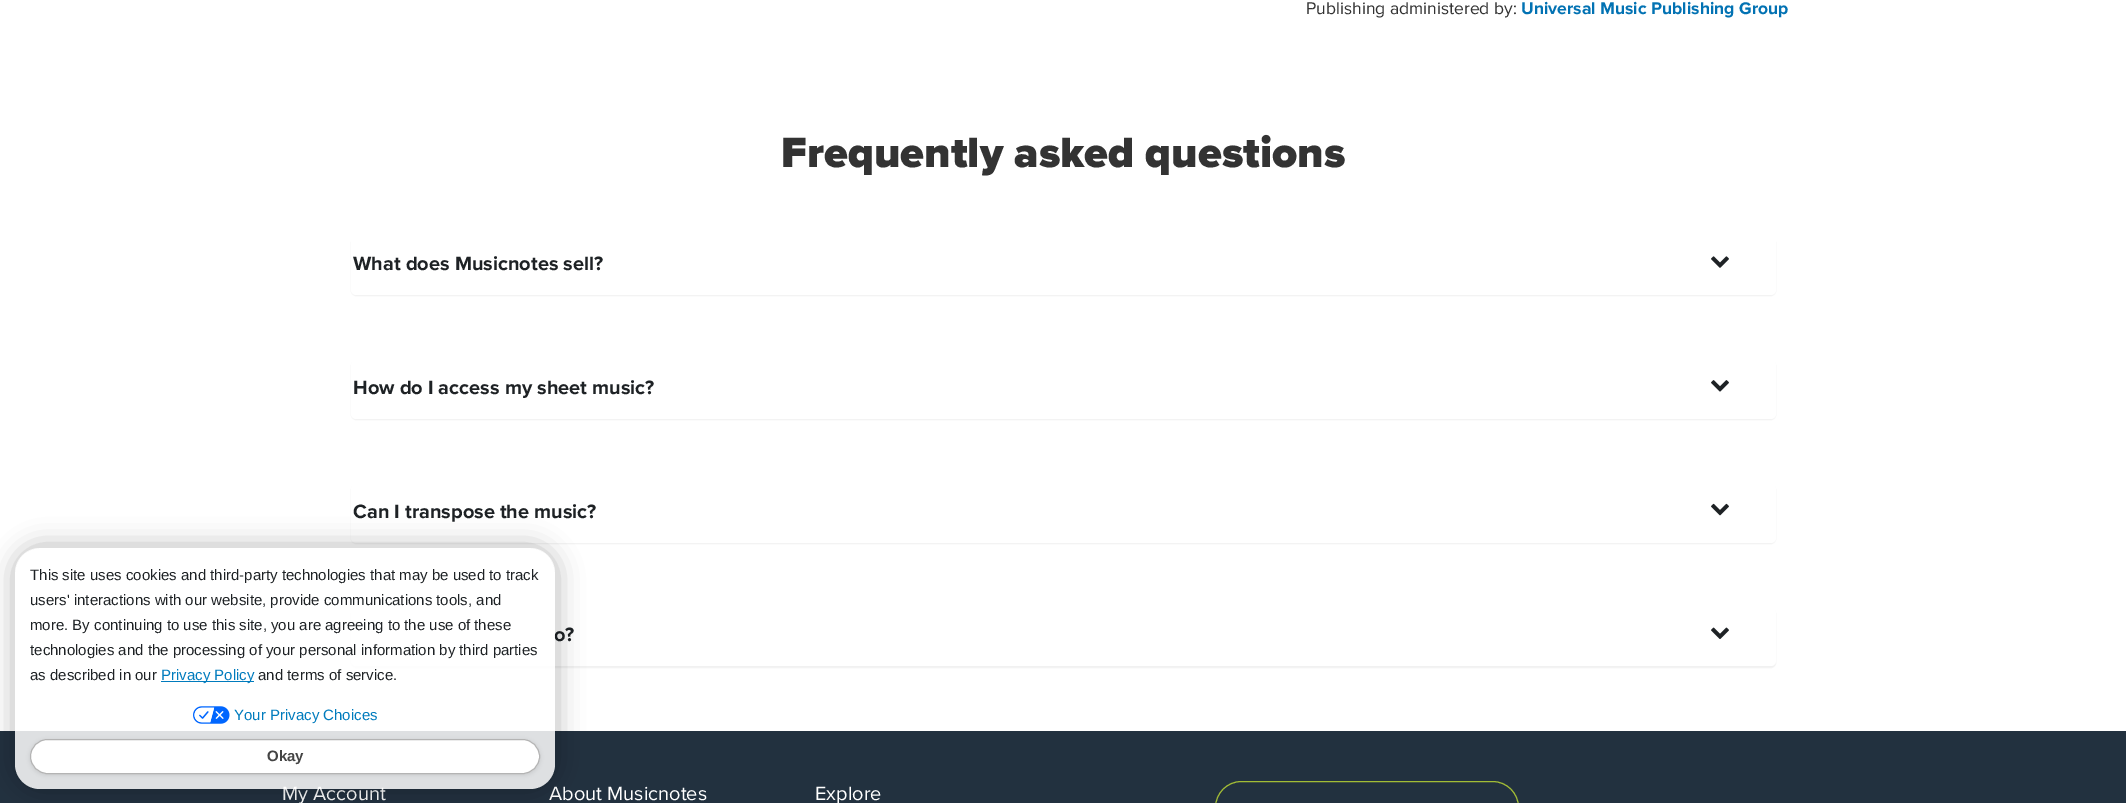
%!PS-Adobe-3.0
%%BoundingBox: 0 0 2126 803
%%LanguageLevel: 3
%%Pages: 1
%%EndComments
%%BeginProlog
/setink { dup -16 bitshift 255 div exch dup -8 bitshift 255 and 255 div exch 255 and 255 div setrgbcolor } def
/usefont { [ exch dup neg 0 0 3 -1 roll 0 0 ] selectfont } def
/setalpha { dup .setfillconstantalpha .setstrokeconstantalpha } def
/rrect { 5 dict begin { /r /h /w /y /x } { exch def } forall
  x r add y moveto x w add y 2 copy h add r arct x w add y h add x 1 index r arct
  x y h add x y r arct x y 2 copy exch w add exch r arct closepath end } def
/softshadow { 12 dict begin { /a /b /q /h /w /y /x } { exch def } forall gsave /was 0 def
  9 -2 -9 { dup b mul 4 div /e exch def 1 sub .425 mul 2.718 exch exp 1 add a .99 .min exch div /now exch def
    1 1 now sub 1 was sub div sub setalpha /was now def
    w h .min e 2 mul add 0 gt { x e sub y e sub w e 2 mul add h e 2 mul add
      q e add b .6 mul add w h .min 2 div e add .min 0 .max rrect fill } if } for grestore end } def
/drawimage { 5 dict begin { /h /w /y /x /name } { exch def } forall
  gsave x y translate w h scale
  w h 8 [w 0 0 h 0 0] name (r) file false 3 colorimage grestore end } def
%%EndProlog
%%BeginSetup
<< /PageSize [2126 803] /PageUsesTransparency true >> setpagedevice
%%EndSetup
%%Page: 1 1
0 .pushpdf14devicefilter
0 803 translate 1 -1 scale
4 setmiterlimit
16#FFFFFF setink
0 0 2126 803 rectfill
/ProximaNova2-Regular 17.5 usefont
16#333333 setink
1306 14 moveto (Publishing administered by:) show
/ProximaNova-Regular 17.5 usefont
16#0272B3 setink
1521 14 moveto (Universal Music Publishing Group) show
/ProximaNova-Black 43.75 usefont
16#333333 setink
781 167 moveto (Frequently asked questions) show
16#000000 setink
351 238 1425 58 5 0.5 0.05 softshadow
16#FFFFFF setink
351 236 1425 59 5 rrect fill
/ProximaNova-Regular 20 usefont
16#1E2225 setink
353 270 moveto (What does Musicnotes sell?) show
(img1.raw) 1711 256 18 12 drawimage
16#000000 setink
351 361 1425 59 5 0.5 0.05 softshadow
16#FFFFFF setink
351 360 1425 59 5 rrect fill
16#1E2225 setink
353 394 moveto (How do I access my sheet music?) show
(img2.raw) 1711 380 18 12 drawimage
16#000000 setink
351 485 1425 59 5 0.5 0.05 softshadow
16#FFFFFF setink
351 484 1425 59 5 rrect fill
16#1E2225 setink
353 518 moveto (Can I transpose the music?) show
(img3.raw) 1711 503 18 13 drawimage
16#000000 setink
351 609 1425 59 5 0.5 0.05 softshadow
16#FFFFFF setink
351 608 1425 58 5 rrect fill
16#1E2225 setink
554 641 moveto (o?) show
(img4.raw) 1711 627 18 12 drawimage
gsave 0 731 moveto 2126 731 lineto 2126 803 lineto 0 803 lineto closepath clip newpath
<< /ShadingType 2 /ColorSpace /DeviceRGB /Coords [1020 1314 1107 606] /Extend [true true] /Function << /FunctionType 3 /Domain [0 1] /Functions [<< /FunctionType 2 /Domain [0 1] /C0 [0.153 0.216 0.271] /C1 [0.153 0.216 0.271] /N 1 >> << /FunctionType 2 /Domain [0 1] /C0 [0.133 0.192 0.247] /C1 [0.133 0.192 0.247] /N 1 >>] /Bounds [0.26] /Encode [0 1 0 1] >> >> shfill grestore
/ProximaNova2-Regular 20 usefont
16#FFFFFF setink
[
    [(My Account) 282 800]
    [(About Musicnotes) 549 800]
    [(Explore) 815 800]
] { aload pop moveto show } forall
16#A2BC35 setink
1215.5 781.5 303 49 26 rrect stroke
gsave
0 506 moveto 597 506 lineto 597 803 lineto 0 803 lineto closepath 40 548 moveto 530 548 lineto 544 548 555 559 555 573 curveto 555 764 lineto 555 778 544 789 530 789 curveto 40 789 lineto 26 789 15 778 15 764 curveto 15 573 lineto 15 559 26 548 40 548 curveto closepath eoclip newpath
16#000000 setink
13 545 545 246 28 12.5 0.25 softshadow
grestore
0.85 setalpha
16#FFFFFF setink
15 548 540 241 25 rrect fill
/LiberationSans-Regular 15 usefont
1 setalpha
16#1E2225 setink
[
    [(This site uses cookies and third-party technologies that may be used to track) 30 580]
    [(users' interactions with our website, provide communications tools, and) 30 605]
    [(more. By continuing to use this site, you are agreeing to the use of these) 30 630]
    [(technologies and the processing of your personal information by third parties) 30 655]
    [(as described in our) 30 680]
] { aload pop moveto show } forall
16#007BBD setink
161 681 93 1 rectfill
161 680 moveto (Privacy Policy) show
16#1E2225 setink
258 680 moveto (and terms of service.) show
(img5.raw) 193 706 37 18 drawimage
16#007BBD setink
234 720 moveto (Your Privacy Choices) show
16#000000 setink
30 740 510 35 17.5 2 0.1 softshadow
16#FFFFFF setink
30.5 739.5 509 34 17 rrect gsave fill grestore
16#B4B4B4 setink
stroke
/LiberationSans-Bold 15 usefont
16#444444 setink
267 761 moveto (Okay) show
.poppdf14devicefilter showpage
%%EOF
